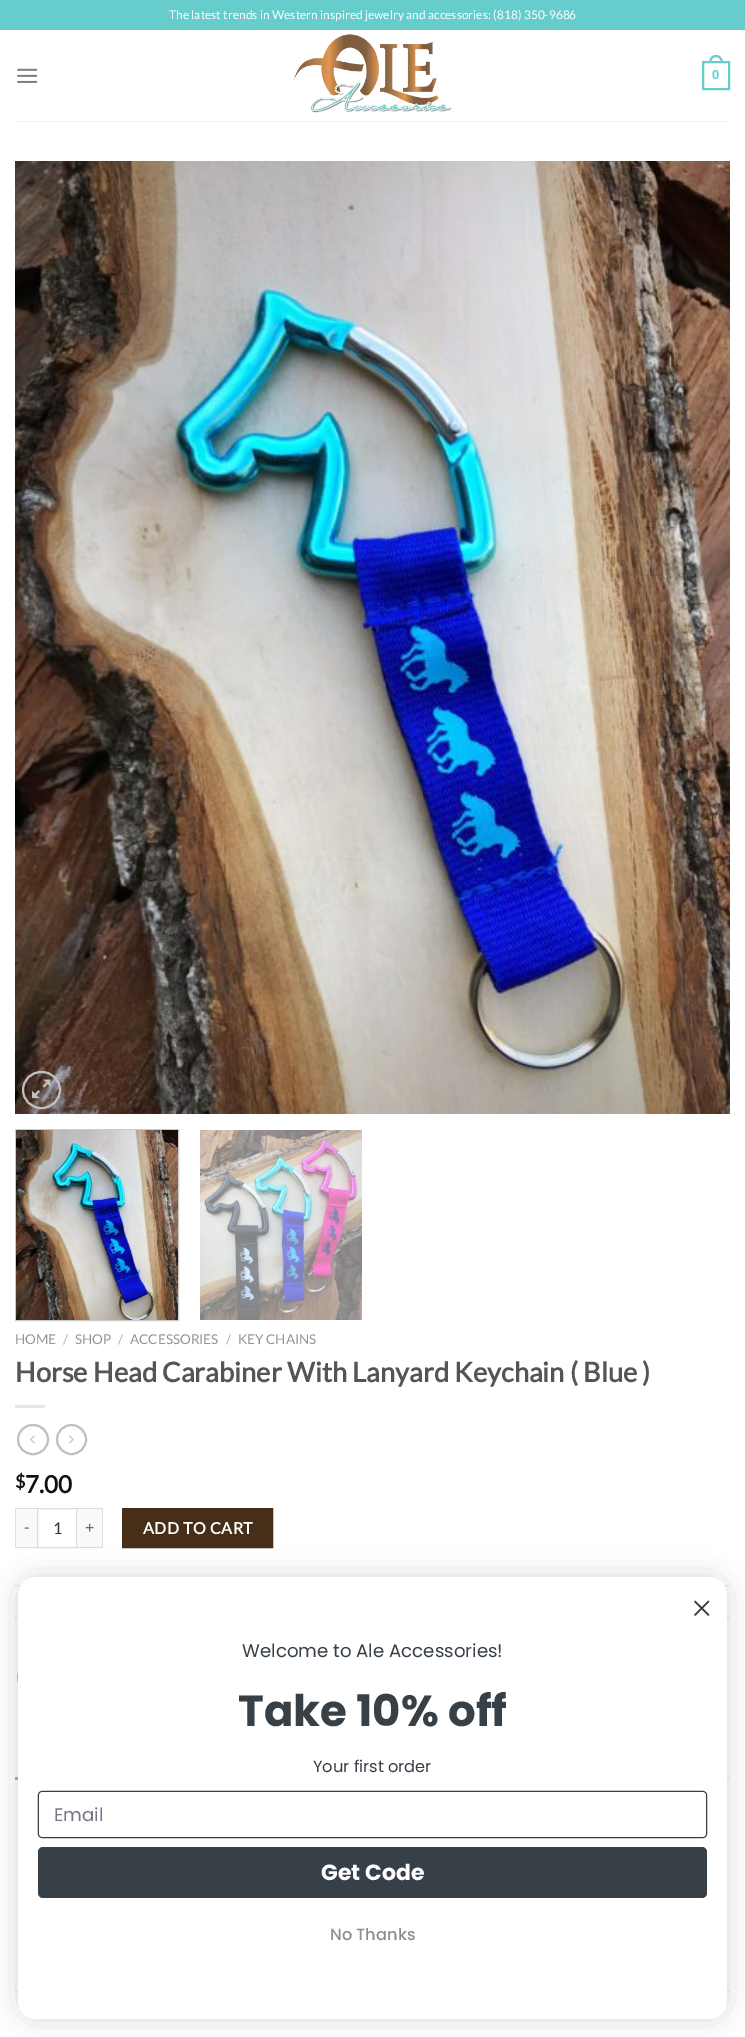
%!PS-Adobe-3.0
%%BoundingBox: 0 0 745 2037
%%LanguageLevel: 3
%%Pages: 1
%%EndComments
%%BeginProlog
/setink { dup -16 bitshift 255 div exch dup -8 bitshift 255 and 255 div exch 255 and 255 div setrgbcolor } def
/usefont { [ exch dup neg 0 0 3 -1 roll 0 0 ] selectfont } def
/setalpha { dup .setfillconstantalpha .setstrokeconstantalpha } def
/disc { newpath 0 360 arc closepath } def
/rrect { 5 dict begin { /r /h /w /y /x } { exch def } forall
  x r add y moveto x w add y 2 copy h add r arct x w add y h add x 1 index r arct
  x y h add x y r arct x y 2 copy exch w add exch r arct closepath end } def
/softshadow { 12 dict begin { /a /b /q /h /w /y /x } { exch def } forall gsave /was 0 def
  9 -2 -9 { dup b mul 4 div /e exch def 1 sub .425 mul 2.718 exch exp 1 add a .99 .min exch div /now exch def
    1 1 now sub 1 was sub div sub setalpha /was now def
    w h .min e 2 mul add 0 gt { x e sub y e sub w e 2 mul add h e 2 mul add
      q e add b .6 mul add w h .min 2 div e add .min 0 .max rrect fill } if } for grestore end } def
/drawimage { 5 dict begin { /h /w /y /x /name } { exch def } forall
  gsave x y translate w h scale
  w h 8 [w 0 0 h 0 0] name (r) file false 3 colorimage grestore end } def
%%EndProlog
%%BeginSetup
<< /PageSize [745 2037] /PageUsesTransparency true >> setpagedevice
%%EndSetup
%%Page: 1 1
0 .pushpdf14devicefilter
0 2037 translate 1 -1 scale
4 setmiterlimit
16#FFFFFF setink
0 0 745 2037 rectfill
16#66CCCC setink
0 0 745 30 rectfill
/Lato-Regular 12 usefont
16#FFFFFF setink
169 19 moveto (The latest trends in Western inspired jewelry and accessories: \(818\) 350-9686) show
(img1.raw) 17 68 21 15 drawimage
(img2.raw) 293 34 159 79 drawimage
16#66CCCC setink
2 setlinewidth
703 62 26 27 rectstroke
716 55 moveto 720.5 55 723 59 723 63 curveto 709 63 lineto 709 59 711.5 55 716 55 curveto closepath 716 57 moveto 719.5 57 721 60 721 63 curveto 711 63 lineto 711 60 712.5 57 716 57 curveto closepath eofill
/LiberationSans-Bold 13 usefont
712 79 moveto (0) show
16#F1F1F1 setink
15 121 715 1 rectfill
(img3.raw) 15 161 715 953 drawimage
16#C0C0C0 setink
23 1072 37 36 18 rrect stroke
(img4.raw) 32 1079 19 20 drawimage
16#CCCCCC setink
1 setlinewidth
15.5 1129.5 163 191 rectstroke
(img5.raw) 16 1130 162 190 drawimage
(img6.raw) 200 1130 162 190 drawimage
/Lato-Regular 13.5 usefont
16#949494 setink
15 1344 moveto (HOME) show
16#B2B2B2 setink
63 1344 moveto (/) show
16#949494 setink
75 1344 moveto (SHOP) show
16#B2B2B2 setink
118 1344 moveto (/) show
16#949494 setink
130 1344 moveto (ACCESSORIES) show
16#B2B2B2 setink
226 1344 moveto (/) show
16#949494 setink
238 1344 moveto (KEY CHAINS) show
/Lato-Bold 27.2 usefont
16#555555 setink
15 1382 moveto (Horse Head Carabiner With Lanyard Keychain \( Blue \)) show
16#E6E6E6 setink
15 1405 30 3 rectfill
16#C0C0C0 setink
2 setlinewidth
18 1425 30 29 14.5 rrect stroke
(img7.raw) 30 1435 5 9 drawimage
71.5 1439.5 14.5 disc stroke
(img8.raw) 69 1435 5 9 drawimage
/Lato-Bold 18 usefont
16#111111 setink
15 1488 moveto ($) show
/Lato-Bold 24 usefont
25 1493 moveto (7.00) show
[
    [16 1509 21 38 16#F9F9F9]
    [15 1508 22 1 16#DDDDDD]
    [15 1547 22 1 16#DDDDDD]
    [15 1508 1 40 16#DDDDDD]
] { aload pop setink rectfill } forall
/Lato-Regular 16 usefont
16#666666 setink
24 1533 moveto (-) show
16#DDDDDD setink
1 setlinewidth
37.5 1508.5 39 39 rectstroke
16#333333 setink
53 1534 moveto (1) show
[
    [77 1509 25 38 16#F9F9F9]
    [77 1508 26 1 16#DDDDDD]
    [102 1508 1 40 16#DDDDDD]
    [77 1547 26 1 16#DDDDDD]
] { aload pop setink rectfill } forall
16#666666 setink
85 1533 moveto (+) show
16#472E19 setink
122.5 1508.5 moveto 272.5 1508.5 lineto 272.5 1547.5 lineto 122.5 1547.5 lineto closepath gsave fill grestore
16#432C18 setink
stroke
/Lato-Bold 16 usefont
16#FFFFFF setink
143 1534 moveto 0.5 0 (ADD TO CART) ashow
16#DDDDDD setink
[1 1] 0 setdash
15 1585.5 moveto 730 1585.5 lineto stroke
15 1617.5 moveto 730 1617.5 lineto stroke
16#C0C0C0 setink
2 setlinewidth
[] 0 setdash
33.5 1677.5 15.5 disc stroke
[
    [727 1777 3 1 16#ECECEC]
    [15 1777 3 3 16#66CCCC]
    [15 1991 715 1 16#ECECEC]
] { aload pop setink rectfill } forall
16#000000 setink
18 1577 709 442 18 13.5 0.15 softshadow
16#FFFFFF setink
18 1577 709 442 18 rrect fill
16#373F47 setink
1.7 setlinewidth
1 setlinecap
1 setlinejoin
695 1601.5 moveto 708.5 1615 lineto 695 1615 moveto 708.5 1601.5 lineto closepath stroke
/Poppins-Regular 18.2 usefont
242 1657 moveto (Welcome to Ale Accessories!) show
/Poppins-Bold 43.5 usefont
238 1726 moveto (Take 10% off) show
/Poppins-Regular 16.25 usefont
313 1772 moveto (Your first order) show
0.9 setlinewidth
0 setlinecap
0 setlinejoin
38.45 1791.45 668.1 46.1 3.55 rrect stroke
/Poppins-Regular 18.2 usefont
16#757584 setink
54 1821 moveto (Email) show
16#373F47 setink
38 1847 669 51 5 rrect fill
/Poppins-Bold 22 usefont
16#FFFFFF setink
321 1880 moveto (Get Code) show
/Poppins-Medium 16.25 usefont
16#8D8D8D setink
330 1940 moveto (No Thanks) show
.poppdf14devicefilter showpage
%%EOF
